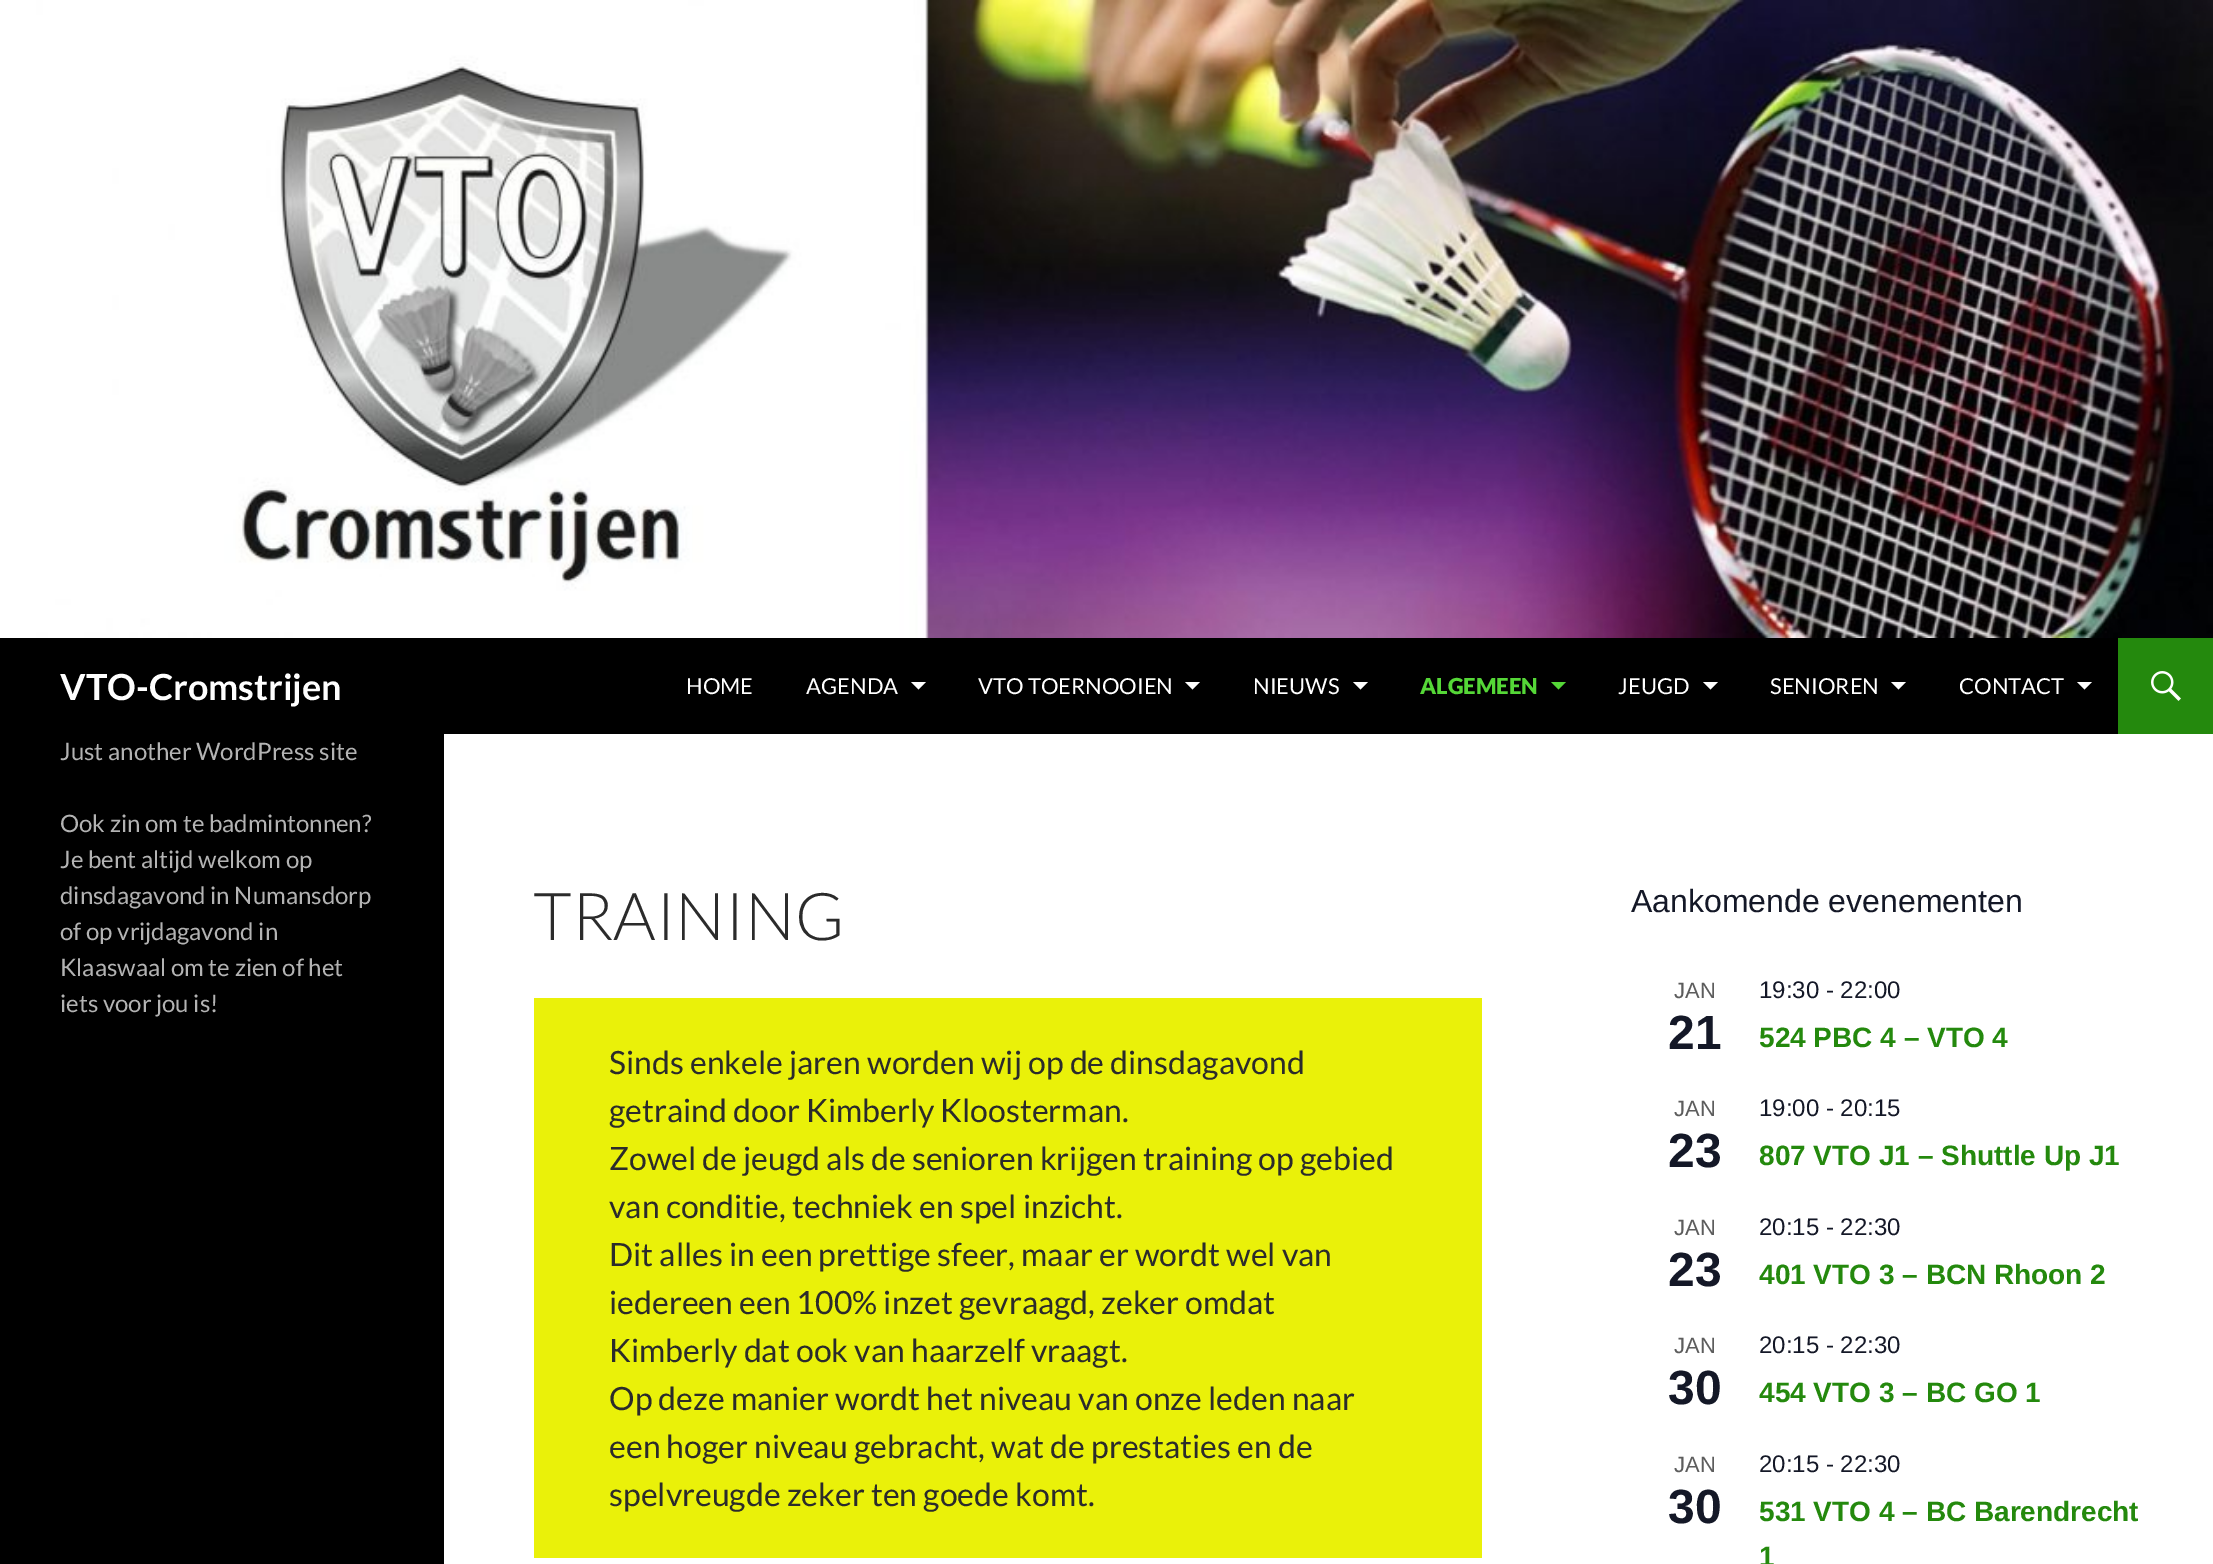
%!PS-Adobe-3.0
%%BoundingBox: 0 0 2213 1564
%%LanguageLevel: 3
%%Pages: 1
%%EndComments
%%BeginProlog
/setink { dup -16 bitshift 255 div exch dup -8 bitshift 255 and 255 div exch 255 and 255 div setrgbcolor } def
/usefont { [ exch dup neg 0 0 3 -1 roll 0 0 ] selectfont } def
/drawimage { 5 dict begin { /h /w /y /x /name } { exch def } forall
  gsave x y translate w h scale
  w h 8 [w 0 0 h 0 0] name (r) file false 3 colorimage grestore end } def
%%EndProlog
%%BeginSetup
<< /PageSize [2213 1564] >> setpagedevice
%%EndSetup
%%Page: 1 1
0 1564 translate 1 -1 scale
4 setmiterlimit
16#FFFFFF setink
0 0 2213 1564 rectfill
(img1.raw) 0 0 2213 638 drawimage
16#000000 setink
0 638 2118 96 rectfill
/Lato-Bold 36 usefont
16#FFFFFF setink
60 700 moveto (VTO-Cromstrijen) show
/Lato-Regular 22 usefont
686 694 moveto (HOME) show
806 694 moveto (AGENDA) show
911 682 moveto 918.5 689.5 lineto 926 682 lineto closepath fill
978 694 moveto (VTO TOERNOOIEN) show
1185 682 moveto 1192.5 689.5 lineto 1200 682 lineto closepath fill
1253 694 moveto (NIEUWS) show
1353 682 moveto 1360.5 689.5 lineto 1368 682 lineto closepath fill
/Lato-Black 22 usefont
16#55D737 setink
1420 694 moveto (ALGEMEEN) show
1551 682 moveto 1558.5 689.5 lineto 1566 682 lineto closepath fill
/Lato-Regular 22 usefont
16#FFFFFF setink
1618 694 moveto (JEUGD) show
1703 682 moveto 1710.5 689.5 lineto 1718 682 lineto closepath fill
1770 694 moveto (SENIOREN) show
1891 682 moveto 1898.5 689.5 lineto 1906 682 lineto closepath fill
1959 694 moveto (CONTACT) show
2077 682 moveto 2084.5 689.5 lineto 2092 682 lineto closepath fill
16#24890D setink
2118 638 95 96 rectfill
(img2.raw) 2151 671 30 30 drawimage
16#000000 setink
0 734 444 830 rectfill
/Lato-Regular 24 usefont
16#B3B3B3 setink
[
    [(Just another WordPress site) 60 760]
    [(Ook zin om te badmintonnen?) 60 832]
    [(Je bent altijd welkom op) 60 868]
    [(dinsdagavond in Numansdorp) 60 904]
    [(of op vrijdagavond in) 60 940]
    [(Klaaswaal om te zien of het) 60 976]
    [(iets voor jou is!) 60 1012]
] { aload pop moveto show } forall
/Lato-Light 66 usefont
16#2B2B2B setink
533 940 moveto (TRAINING) show
16#EAF109 setink
534 998 948 560 rectfill
/Lato-Regular 32 usefont
16#2B2B2B setink
[
    [(Sinds enkele jaren worden wij op de dinsdagavond) 609 1074]
    [(getraind door Kimberly Kloosterman.) 609 1122]
    [(Zowel de jeugd als de senioren krijgen training op gebied) 609 1170]
    [(van conditie, techniek en spel inzicht.) 609 1218]
    [(Dit alles in een prettige sfeer, maar er wordt wel van) 609 1266]
    [(iedereen een 100% inzet gevraagd, zeker omdat) 609 1314]
    [(Kimberly dat ook van haarzelf vraagt.) 609 1362]
    [(Op deze manier wordt het niveau van onze leden naar) 609 1410]
    [(een hoger niveau gebracht, wat de prestaties en de) 609 1458]
    [(spelvreugde zeker ten goede komt.) 609 1506]
] { aload pop moveto show } forall
/LiberationSans-Regular 32 usefont
16#141827 setink
1631 912 moveto (Aankomende evenementen) show
/LiberationSans-Regular 22 usefont
16#5D5D5D setink
1674 998 moveto (JAN) show
/LiberationSans-Bold 48 usefont
16#141827 setink
1668 1049 moveto (21) show
/LiberationSans-Regular 24 usefont
1759 998 moveto (19:30 - 22:00) show
/LiberationSans-Bold 28 usefont
16#24890D setink
1759 1047 moveto (524 PBC 4 – VTO 4) show
/LiberationSans-Regular 22 usefont
16#5D5D5D setink
1674 1116 moveto (JAN) show
/LiberationSans-Bold 48 usefont
16#141827 setink
1668 1167 moveto (23) show
/LiberationSans-Regular 24 usefont
1759 1116 moveto (19:00 - 20:15) show
/LiberationSans-Bold 28 usefont
16#24890D setink
1759 1165 moveto (807 VTO J1 – Shuttle Up J1) show
/LiberationSans-Regular 22 usefont
16#5D5D5D setink
1674 1235 moveto (JAN) show
/LiberationSans-Bold 48 usefont
16#141827 setink
1668 1286 moveto (23) show
/LiberationSans-Regular 24 usefont
1759 1235 moveto (20:15 - 22:30) show
/LiberationSans-Bold 28 usefont
16#24890D setink
1759 1284 moveto (401 VTO 3 – BCN Rhoon 2) show
/LiberationSans-Regular 22 usefont
16#5D5D5D setink
1674 1353 moveto (JAN) show
/LiberationSans-Bold 48 usefont
16#141827 setink
1668 1404 moveto (30) show
/LiberationSans-Regular 24 usefont
1759 1353 moveto (20:15 - 22:30) show
/LiberationSans-Bold 28 usefont
16#24890D setink
1759 1402 moveto (454 VTO 3 – BC GO 1) show
/LiberationSans-Regular 22 usefont
16#5D5D5D setink
1674 1472 moveto (JAN) show
/LiberationSans-Bold 48 usefont
16#141827 setink
1668 1523 moveto (30) show
/LiberationSans-Regular 24 usefont
1759 1472 moveto (20:15 - 22:30) show
/LiberationSans-Bold 28 usefont
16#24890D setink
1759 1521 moveto (531 VTO 4 – BC Barendrecht) show
1759 1566 moveto (1) show
showpage
%%EOF
